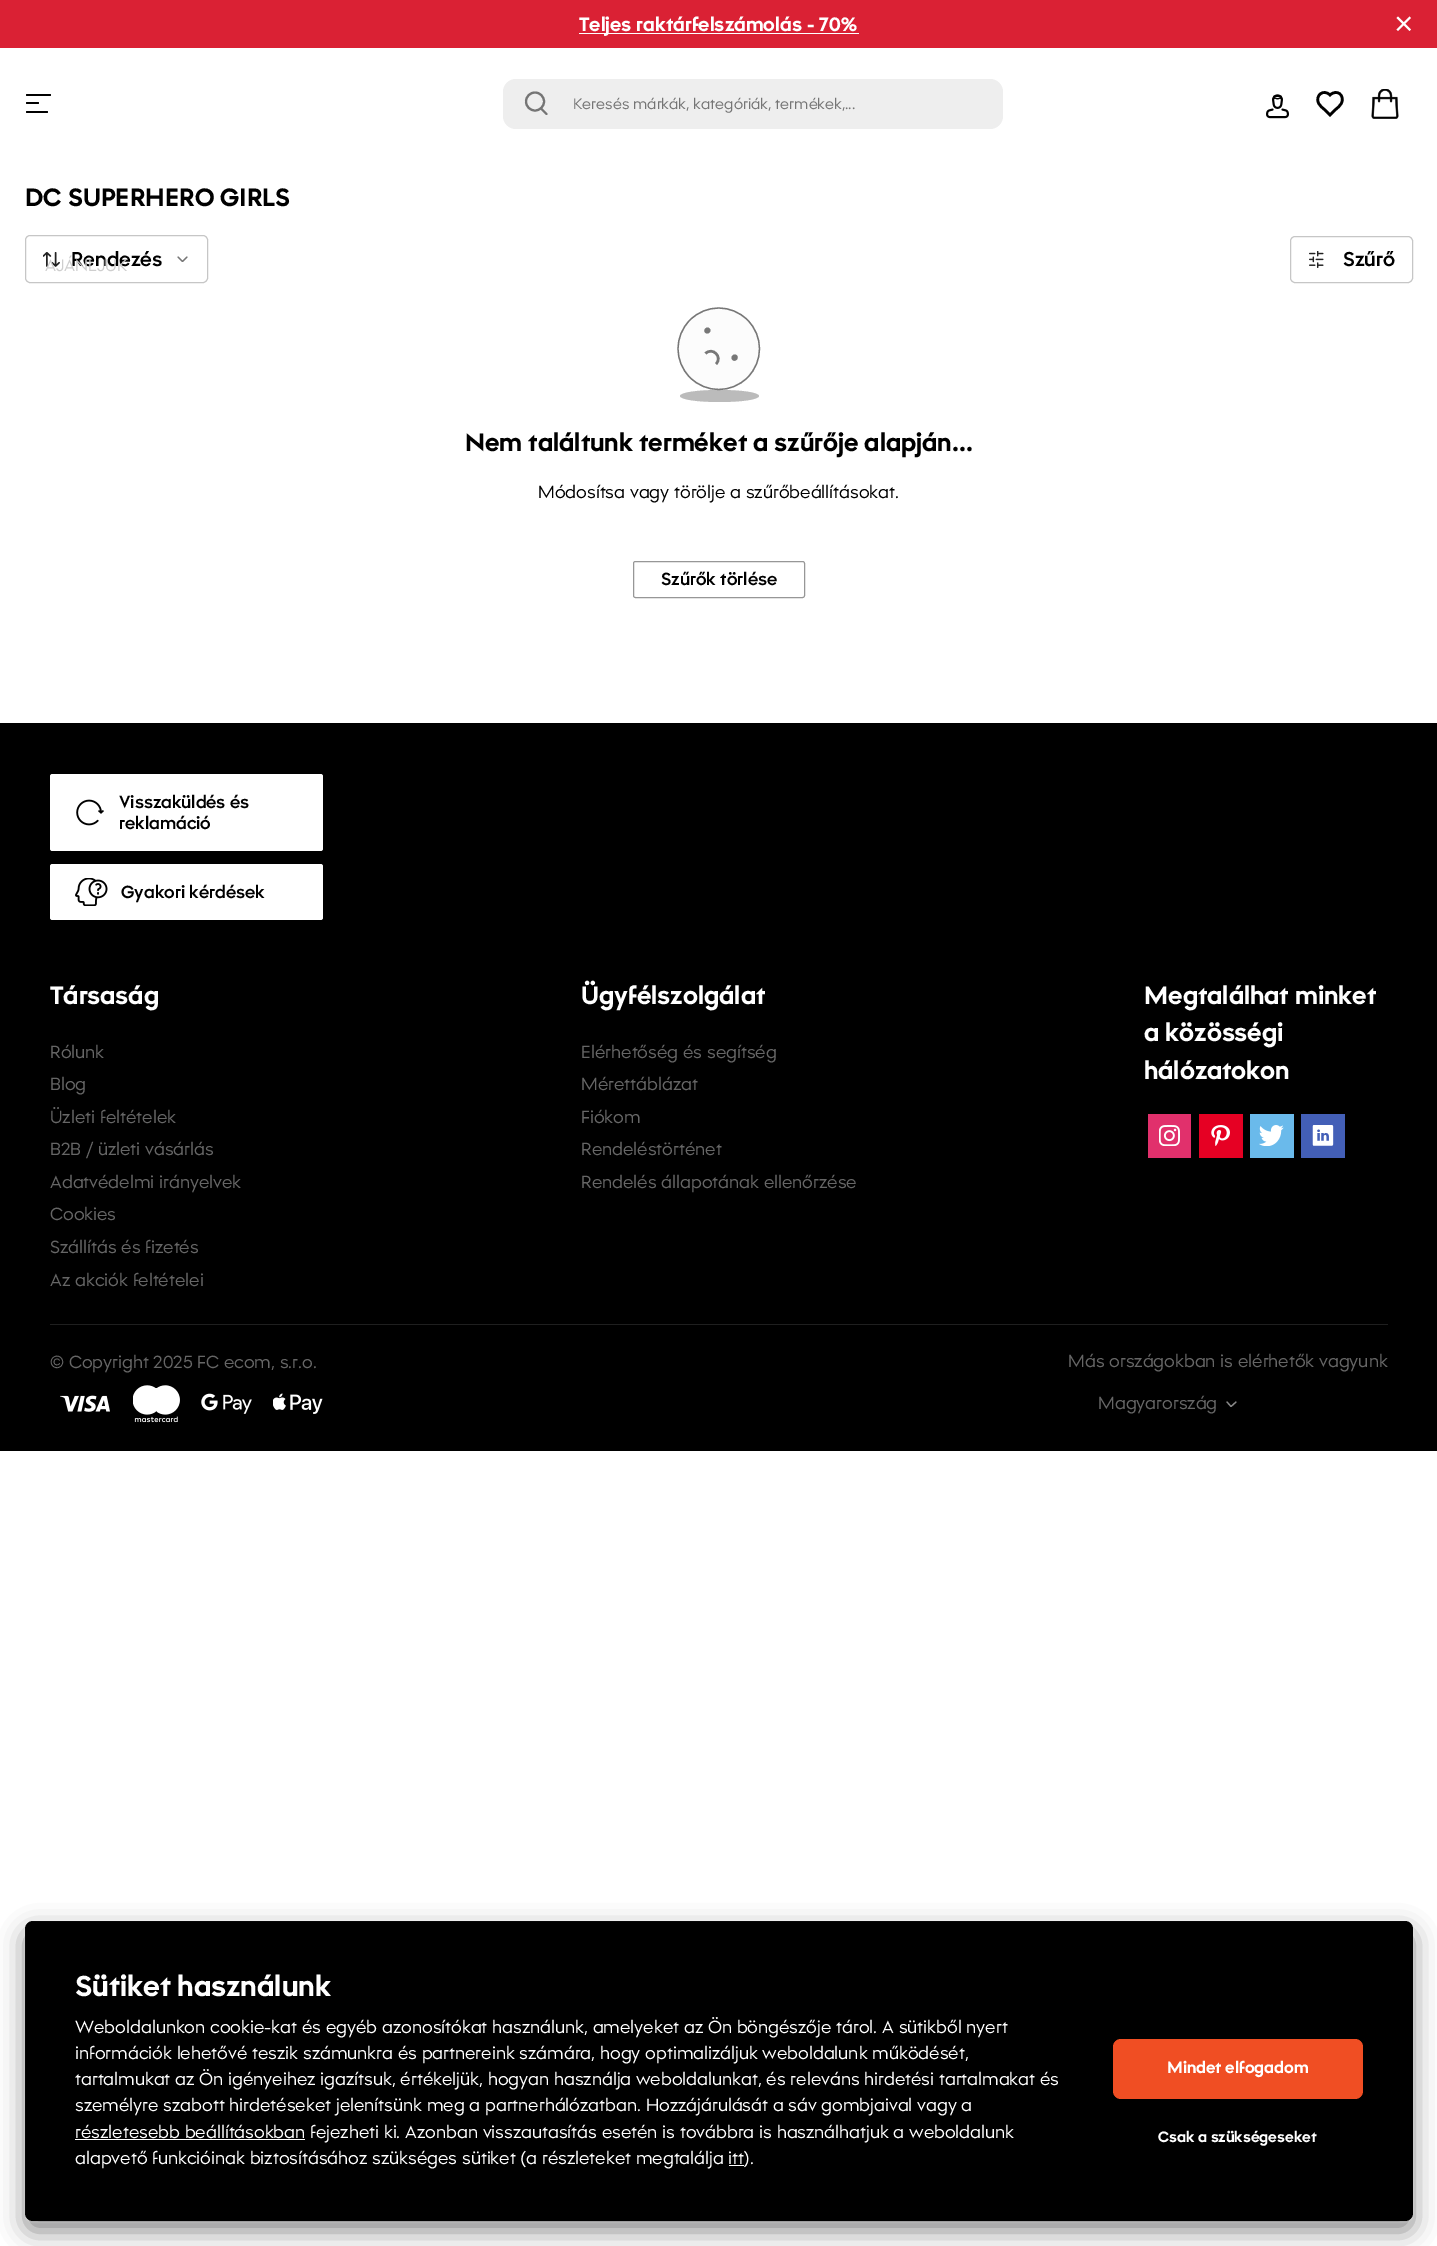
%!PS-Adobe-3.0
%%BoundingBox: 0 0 1437 2246
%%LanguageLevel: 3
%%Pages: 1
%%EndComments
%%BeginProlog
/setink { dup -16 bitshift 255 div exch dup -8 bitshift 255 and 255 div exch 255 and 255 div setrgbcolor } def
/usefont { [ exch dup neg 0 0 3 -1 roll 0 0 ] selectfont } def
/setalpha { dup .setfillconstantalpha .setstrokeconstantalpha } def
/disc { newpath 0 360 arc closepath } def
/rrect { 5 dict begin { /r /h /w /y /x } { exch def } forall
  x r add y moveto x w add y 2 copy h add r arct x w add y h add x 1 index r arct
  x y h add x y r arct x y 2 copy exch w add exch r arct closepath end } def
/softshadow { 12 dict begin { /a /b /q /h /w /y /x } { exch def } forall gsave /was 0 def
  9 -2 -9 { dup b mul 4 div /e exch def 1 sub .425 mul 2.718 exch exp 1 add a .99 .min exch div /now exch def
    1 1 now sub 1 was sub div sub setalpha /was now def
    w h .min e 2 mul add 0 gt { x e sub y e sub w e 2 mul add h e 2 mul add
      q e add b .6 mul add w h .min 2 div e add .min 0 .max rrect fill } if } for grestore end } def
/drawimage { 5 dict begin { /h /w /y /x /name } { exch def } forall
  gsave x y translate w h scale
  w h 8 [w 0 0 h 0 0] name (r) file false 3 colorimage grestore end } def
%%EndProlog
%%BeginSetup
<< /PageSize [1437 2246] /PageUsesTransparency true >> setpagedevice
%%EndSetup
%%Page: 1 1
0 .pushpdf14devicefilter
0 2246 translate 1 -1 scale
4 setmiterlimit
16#FFFFFF setink
0 0 1437 2246 rectfill
16#DA2134 setink
0 0 1437 48 rectfill
16#FFFFFF setink
579 33 280 1 rectfill
/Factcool-Bold 19.4 usefont
579 31 moveto (Teljes raktárfelszámolás - 70%) show
2.1 setlinewidth
2 setlinecap
1409.5 18 moveto 1398 29.5 lineto 1398 18 moveto 1409.5 29.5 lineto stroke
16#000000 setink
26 94 25 2 1 rrect fill
26 102 13 2 1 rrect fill
26 111 22 2 1 rrect fill
16#EEEEEE setink
503 79 500 50 13 rrect fill
16#757575 setink
0 setlinecap
535 101.5 9 disc stroke
1 setlinecap
546.5 114 moveto 541 108.5 lineto stroke
/Factcool-Regular 15 usefont
573 109 moveto (Keresés márkák, kategóriák, termékek,...) show
(img1.raw) 1266 94 23 25 drawimage
16#000000 setink
2.6 setlinewidth
1330 95 moveto 1323.5 88.5 1315 95.5 1318.5 103 curveto 1319.5 105.5 1322.5 108 1325 110 curveto 1330 115 lineto 1335 110 lineto 1337.5 108 1340.5 105.5 1341.5 103 curveto 1345 95.5 1337 88.5 1330 95 curveto closepath stroke
(img2.raw) 1371 89 28 30 drawimage
/Factcool-Bold 25 usefont
25 206 moveto (DC SUPERHERO GIRLS) show
16#C6C6C6 setink
1 setlinewidth
0 setlinecap
25.5 235.5 182 47 4.5 rrect stroke
(img3.raw) 43 252 17 15 drawimage
/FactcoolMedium-Medium 20 usefont
16#000000 setink
71 266 moveto (Rendezés) show
16#767676 setink
1.2 setlinewidth
1 setlinecap
1 setlinejoin
187 257 moveto 182.5 261.5 lineto 178 257 lineto stroke
/Factcool-Regular 16.5 usefont
16#CECECE setink
45 271 moveto (AJÁNLJUK) show
16#C6C6C6 setink
1 setlinewidth
0 setlinecap
0 setlinejoin
1290.5 236.5 122 46 4.5 rrect stroke
(img4.raw) 1309 251 15 17 drawimage
/FactcoolMedium-Medium 20 usefont
16#000000 setink
1343 266 moveto (Szűrő) show
16#FCFCFC setink
748 320 moveto 764 336 764 362 748 378 curveto 732 394 706 394 690 378 curveto 673 362 673 336 690 320 curveto 706 303 732 303 748 320 curveto closepath fill
16#BBBBBB setink
719.5 390 moveto 741.5 390 759 392.5 759 396 curveto 759 399.5 741.5 402 719.5 402 curveto 697.5 402 680 399.5 680 396 curveto 680 392.5 697.5 390 719.5 390 curveto closepath fill
16#777777 setink
1.3 setlinewidth
747.5 320 moveto 763.5 336 763.5 361.5 747.5 377.5 curveto 731.5 393.5 706 393.5 690 377.5 curveto 674 361.5 674 336 690 320 curveto 706 304 731.5 304 747.5 320 curveto closepath stroke
709.5 328.5 moveto 712.5 331 708 335.5 705 332.5 curveto 702.5 330 707 325.5 709.5 328.5 curveto closepath 737 355.5 moveto 739.5 358.5 735 362.5 732.5 360 curveto 729.5 357 734 352.5 737 355.5 curveto closepath fill
2.5 setlinewidth
705.5 353.5 moveto 712.5 346.5 723 357 716 364 curveto stroke
/Factcool-Bold 25 usefont
16#000000 setink
465 451 moveto (Nem találtunk terméket a szűrője alapján...) show
/Factcool-Regular 17.5 usefont
538 498 moveto (Módosítsa vagy törölje a szűrőbeállításokat.) show
16#979797 setink
1 setlinewidth
633.5 561.5 171 36 2 rrect stroke
/FactcoolMedium-Medium 17.5 usefont
16#000000 setink
661 585 moveto (Szűrők törlése) show
0 723 1437 728 rectfill
16#FFFFFF setink
50 774 273 77 2.5 rrect fill
(img5.raw) 76 799 28 27 drawimage
16#000000 setink
119 808 moveto (Visszaküldés és) show
119 829 moveto (reklamáció) show
16#FFFFFF setink
50 864 273 56 2.5 rrect fill
(img6.raw) 75 878 33 28 drawimage
16#000000 setink
121 898 moveto (Gyakori kérdések) show
/Factcool-Bold 25 usefont
16#FFFFFF setink
50 1004 moveto (Társaság) show
/Factcool-Regular 17.5 usefont
16#666666 setink
[
    [(Rólunk) 50 1058]
    [(Blog) 50 1090]
    [(Üzleti feltételek) 50 1123]
    [(B2B / üzleti vásárlás) 50 1155]
    [(Adatvédelmi irányelvek) 50 1188]
    [(Cookies) 50 1220]
    [(Szállítás és fizetés) 50 1253]
    [(Az akciók feltételei) 50 1286]
] { aload pop moveto show } forall
/Factcool-Bold 25 usefont
16#FFFFFF setink
581 1004 moveto (Ügyfélszolgálat) show
/Factcool-Regular 17.5 usefont
16#666666 setink
[
    [(Elérhetőség és segítség) 581 1058]
    [(Mérettáblázat) 581 1090]
    [(Fiókom) 581 1123]
    [(Rendeléstörténet) 581 1155]
    [(Rendelés állapotának ellenőrzése) 581 1188]
] { aload pop moveto show } forall
/Factcool-Bold 25 usefont
16#FFFFFF setink
[
    [(Megtalálhat minket) 1144 1004]
    [(a közösségi) 1144 1041]
    [(hálózatokon) 1144 1079]
] { aload pop moveto show } forall
16#E1306C setink
1148 1114 43 44 rectfill
(img7.raw) 1159 1125 21 21 drawimage
16#E60023 setink
1199 1114 44 44 rectfill
(img8.raw) 1211 1125 19 21 drawimage
16#6ABAEB setink
1250 1114 44 44 rectfill
(img9.raw) 1259 1125 25 21 drawimage
16#435FB7 setink
1301 1114 44 44 rectfill
(img10.raw) 1312 1125 22 21 drawimage
16#1F1F1F setink
50 1324 1338 1 rectfill
/Factcool-Regular 17.5 usefont
16#666666 setink
50 1368 moveto (© Copyright 2025 FC ecom, s.r.o.) show
(img11.raw) 60 1395 50 17 drawimage
(img12.raw) 133 1385 47 38 drawimage
(img13.raw) 201 1393 51 21 drawimage
(img14.raw) 273 1393 50 21 drawimage
1068 1367 moveto (Más országokban is elérhetők vagyunk) show
1098 1409 moveto (Magyarország) show
16#898989 setink
1.2 setlinewidth
1 setlinecap
1 setlinejoin
1236 1402 moveto 1231 1406.5 lineto 1227 1402 lineto stroke
16#111113 setink
25 1931 1388 300 8 12.5 0.5 softshadow
16#000000 setink
25 1921 1388 300 8 rrect fill
0.1 setalpha
16#FFFFFF setink
1 setlinewidth
0 setlinecap
0 setlinejoin
24.5 1920.5 1389 302 8.5 rrect stroke
/Factcool-Bold 28.75 usefont
1 setalpha
75 1996 moveto (Sütiket használunk) show
/Factcool-Regular 17.5 usefont
[
    [(Weboldalunkon cookie-kat és egyéb azonosítókat használunk, amelyeket az Ön böngészője tárol. A sütikből nyert) 75 2033]
    [(információk lehetővé teszik számunkra és partnereink számára, hogy optimalizáljuk weboldalunk működését,) 75 2059]
    [(tartalmukat az Ön igényeihez igazítsuk, értékeljük, hogyan használja weboldalunkat, és releváns hirdetési tartalmakat és) 75 2085]
    [(személyre szabott hirdetéseket jelenítsünk meg a partnerhálózatban. Hozzájárulását a sáv gombjaival vagy a) 75 2111]
] { aload pop moveto show } forall
75 2139 230 1 rectfill
75 2138 moveto (részletesebb beállításokban fejezheti ki. Azonban visszautasítás esetén is továbbra is használhatjuk a weboldalunk) show
75 2164 moveto (alapvető funkcióinak biztosításához szükséges sütiket \(a részleteket megtalálja itt\).) show
729 2165 15 1 rectfill
16#F04E23 setink
1113 2039 250 60 8 rrect fill
/Factcool-Bold 16.25 usefont
16#FFFFFF setink
1167 2073 moveto (Mindet elfogadom) show
/Factcool-Bold 15 usefont
1158 2142 moveto (Csak a szükségeseket) show
.poppdf14devicefilter showpage
%%EOF
